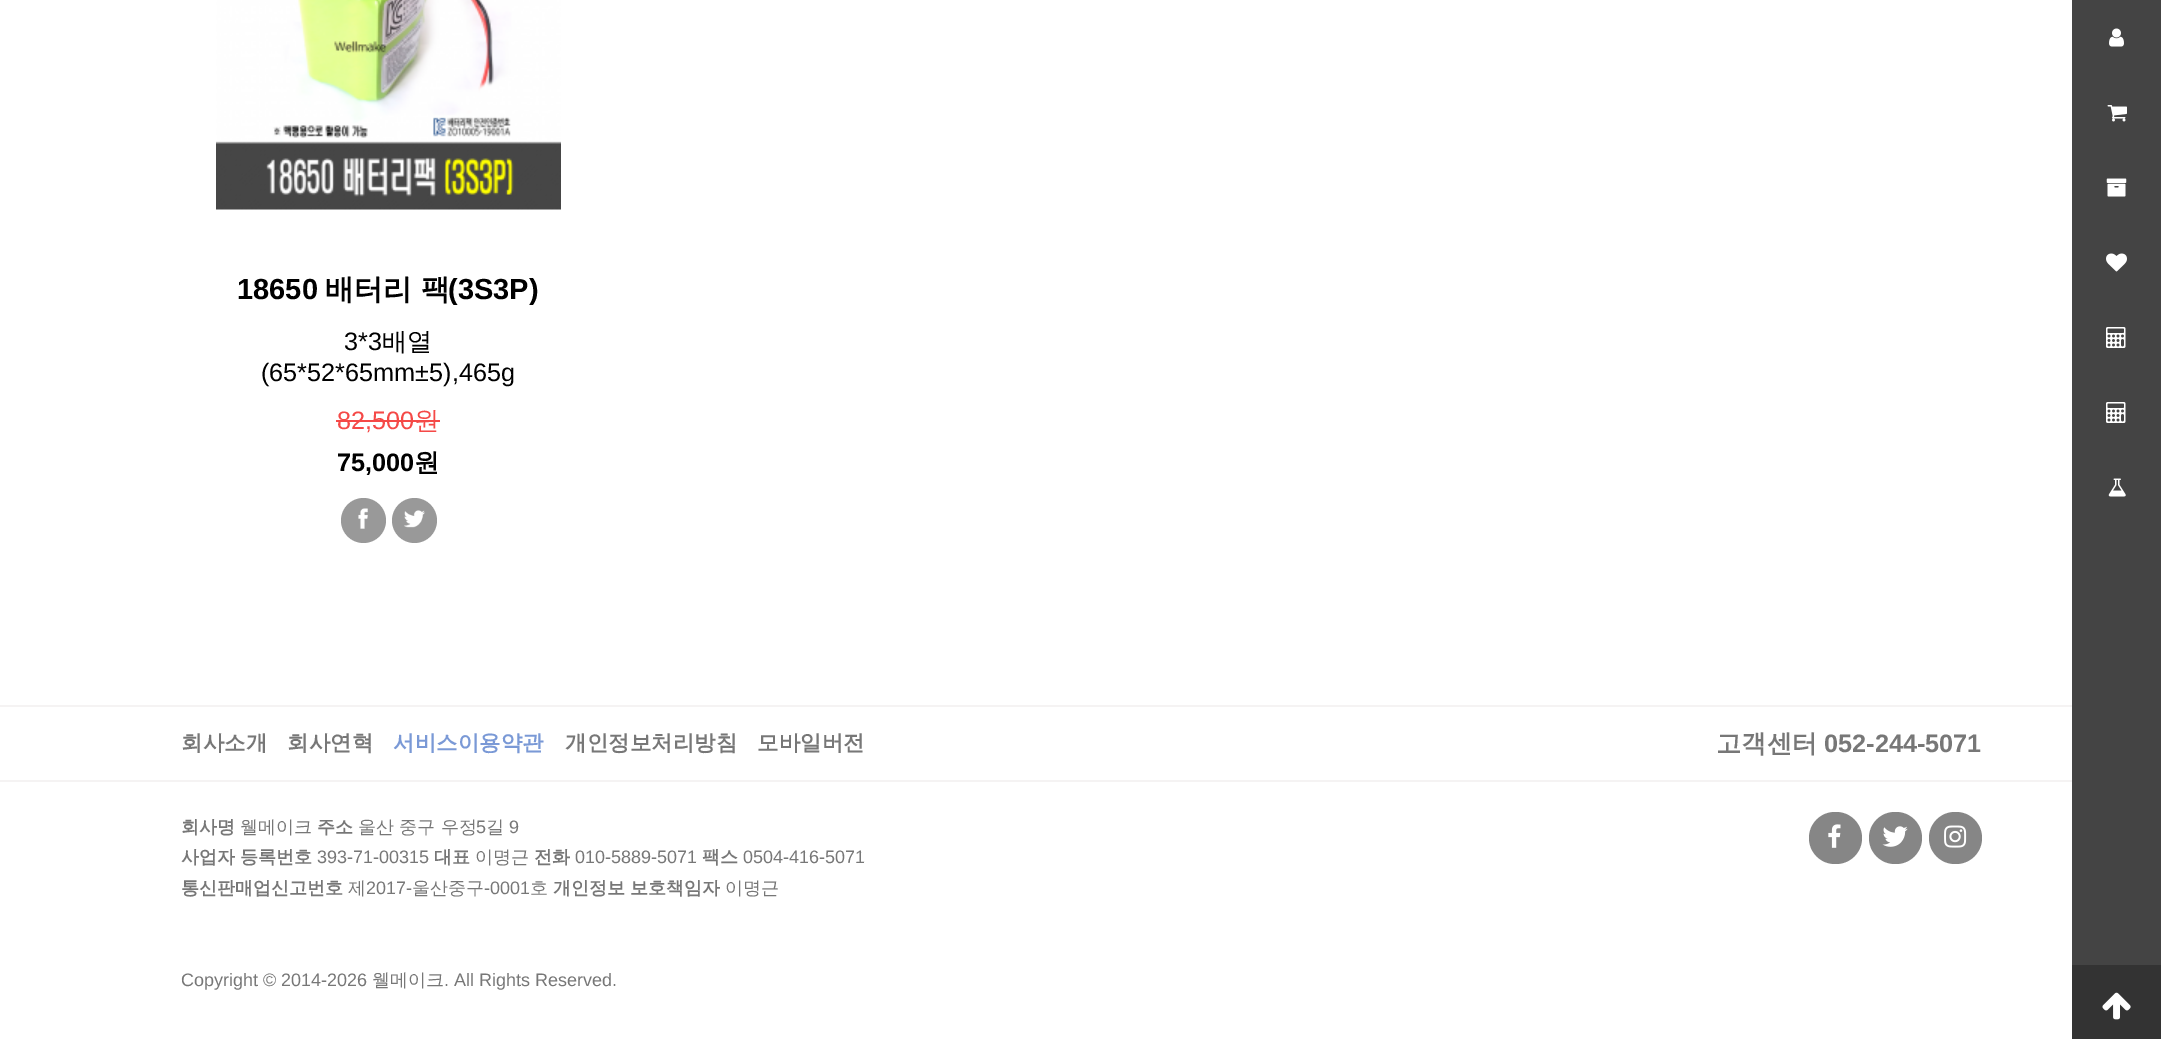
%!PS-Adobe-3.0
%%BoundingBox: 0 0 2161 1039
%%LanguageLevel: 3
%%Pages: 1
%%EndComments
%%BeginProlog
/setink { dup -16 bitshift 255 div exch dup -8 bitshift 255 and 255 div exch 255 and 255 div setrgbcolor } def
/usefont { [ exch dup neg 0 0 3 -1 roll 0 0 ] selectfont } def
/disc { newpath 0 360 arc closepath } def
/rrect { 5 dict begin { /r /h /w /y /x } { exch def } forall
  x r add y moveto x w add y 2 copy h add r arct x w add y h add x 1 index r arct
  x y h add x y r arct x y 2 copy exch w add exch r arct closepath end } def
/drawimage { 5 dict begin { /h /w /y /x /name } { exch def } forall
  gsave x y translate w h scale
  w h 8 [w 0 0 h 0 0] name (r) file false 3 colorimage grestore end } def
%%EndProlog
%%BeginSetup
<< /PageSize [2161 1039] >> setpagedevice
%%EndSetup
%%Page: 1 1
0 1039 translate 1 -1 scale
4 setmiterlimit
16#FFFFFF setink
0 0 2161 1039 rectfill
(img1.raw) 216 0 345 210 drawimage
/LiberationSans-Bold 29 usefont
16#000000 setink
237 299 moveto (18650) show
/WenQuanYiZenHei-Bold 29 usefont
325 299 moveto (배터리 팩) show
/LiberationSans-Bold 29 usefont
448 299 moveto (\(3S3P\)) show
/LiberationSans-Regular 25.25 usefont
344 350 moveto (3*3) show
/WenQuanYiZenHei-Medium 25.25 usefont
382 350 moveto (배열) show
/LiberationSans-Regular 25.25 usefont
261 381 moveto (\(65*52*65mm±5\),465g) show
16#F54947 setink
337 429 moveto (82,500) show
/WenQuanYiZenHei-Medium 25.25 usefont
414 429 moveto (원) show
336 420 104 2 rectfill
/LiberationSans-Bold 25.25 usefont
16#000000 setink
337 471 moveto (75,000) show
/WenQuanYiZenHei-Bold 25.25 usefont
414 471 moveto (원) show
16#999999 setink
363.5 520.5 22.5 disc fill
(img2.raw) 358 508 10 21 drawimage
414.5 520.5 22.5 disc fill
(img3.raw) 404 510 21 18 drawimage
16#444444 setink
2072 0 89 965 rectfill
(img4.raw) 2109 28 15 19 drawimage
(img5.raw) 2107 105 20 17 drawimage
(img6.raw) 2106 178 21 19 drawimage
(img7.raw) 2106 253 21 19 drawimage
(img8.raw) 2106 327 20 21 drawimage
(img8.raw) 2106 402 20 21 drawimage
(img9.raw) 2108 478 18 19 drawimage
16#333333 setink
2072 965 89 74 rectfill
(img10.raw) 2102 992 29 28 drawimage
16#F5F3F3 setink
0 705 2072 2 rectfill
0 780 2072 2 rectfill
/WenQuanYiZenHei-Bold 21.5 usefont
16#777777 setink
181 750 moveto (회사소개) show
287 750 moveto (회사연혁) show
16#7A99D6 setink
393 750 moveto (서비스이용약관) show
16#777777 setink
565 750 moveto (개인정보처리방침) show
757 750 moveto (모바일버전) show
/WenQuanYiZenHei-Bold 25.25 usefont
1716 752 moveto (고객센터) show
/LiberationSans-Bold 25.25 usefont
1824 752 moveto (052-244-5071) show
/WenQuanYiZenHei-Bold 18 usefont
181 833 moveto (회사명) show
/WenQuanYiZenHei-Medium 18 usefont
240 833 moveto (웰메이크) show
/WenQuanYiZenHei-Bold 18 usefont
317 833 moveto (주소) show
/WenQuanYiZenHei-Medium 18 usefont
358 833 moveto (울산 중구 우정) show
/LiberationSans-Regular 18 usefont
476 833 moveto (5) show
/WenQuanYiZenHei-Medium 18 usefont
486 833 moveto (길) show
/LiberationSans-Regular 18 usefont
509 833 moveto (9) show
16#868686 setink
1809 812 53 52 26 rrect fill
(img11.raw) 1828 824 13 24 drawimage
1869 812 53 52 26 rrect fill
(img12.raw) 1882 826 26 21 drawimage
1929 812 53 52 26 rrect fill
(img13.raw) 1944 825 23 23 drawimage
/WenQuanYiZenHei-Bold 18 usefont
16#777777 setink
181 863 moveto (사업자 등록번호) show
/LiberationSans-Regular 18 usefont
317 863 moveto (393-71-00315) show
/WenQuanYiZenHei-Bold 18 usefont
434 863 moveto (대표) show
/WenQuanYiZenHei-Medium 18 usefont
475 863 moveto (이명근) show
/WenQuanYiZenHei-Bold 18 usefont
534 863 moveto (전화) show
/LiberationSans-Regular 18 usefont
575 863 moveto (010-5889-5071) show
/WenQuanYiZenHei-Bold 18 usefont
702 863 moveto (팩스) show
/LiberationSans-Regular 18 usefont
743 863 moveto (0504-416-5071) show
/WenQuanYiZenHei-Bold 18 usefont
181 894 moveto (통신판매업신고번호) show
/WenQuanYiZenHei-Medium 18 usefont
348 894 moveto (제) show
/LiberationSans-Regular 18 usefont
366 894 moveto (2017-) show
/WenQuanYiZenHei-Medium 18 usefont
412 894 moveto (울산중구) show
/LiberationSans-Regular 18 usefont
484 894 moveto (-0001) show
/WenQuanYiZenHei-Medium 18 usefont
530 894 moveto (호) show
/WenQuanYiZenHei-Bold 18 usefont
553 894 moveto (개인정보 보호책임자) show
/WenQuanYiZenHei-Medium 18 usefont
725 894 moveto (이명근) show
/LiberationSans-Regular 18 usefont
181 986 moveto (Copyright © 2014-2026) show
/WenQuanYiZenHei-Medium 18 usefont
372 986 moveto (웰메이크) show
/LiberationSans-Regular 18 usefont
444 986 moveto (. All Rights Reserved.) show
showpage
%%EOF
